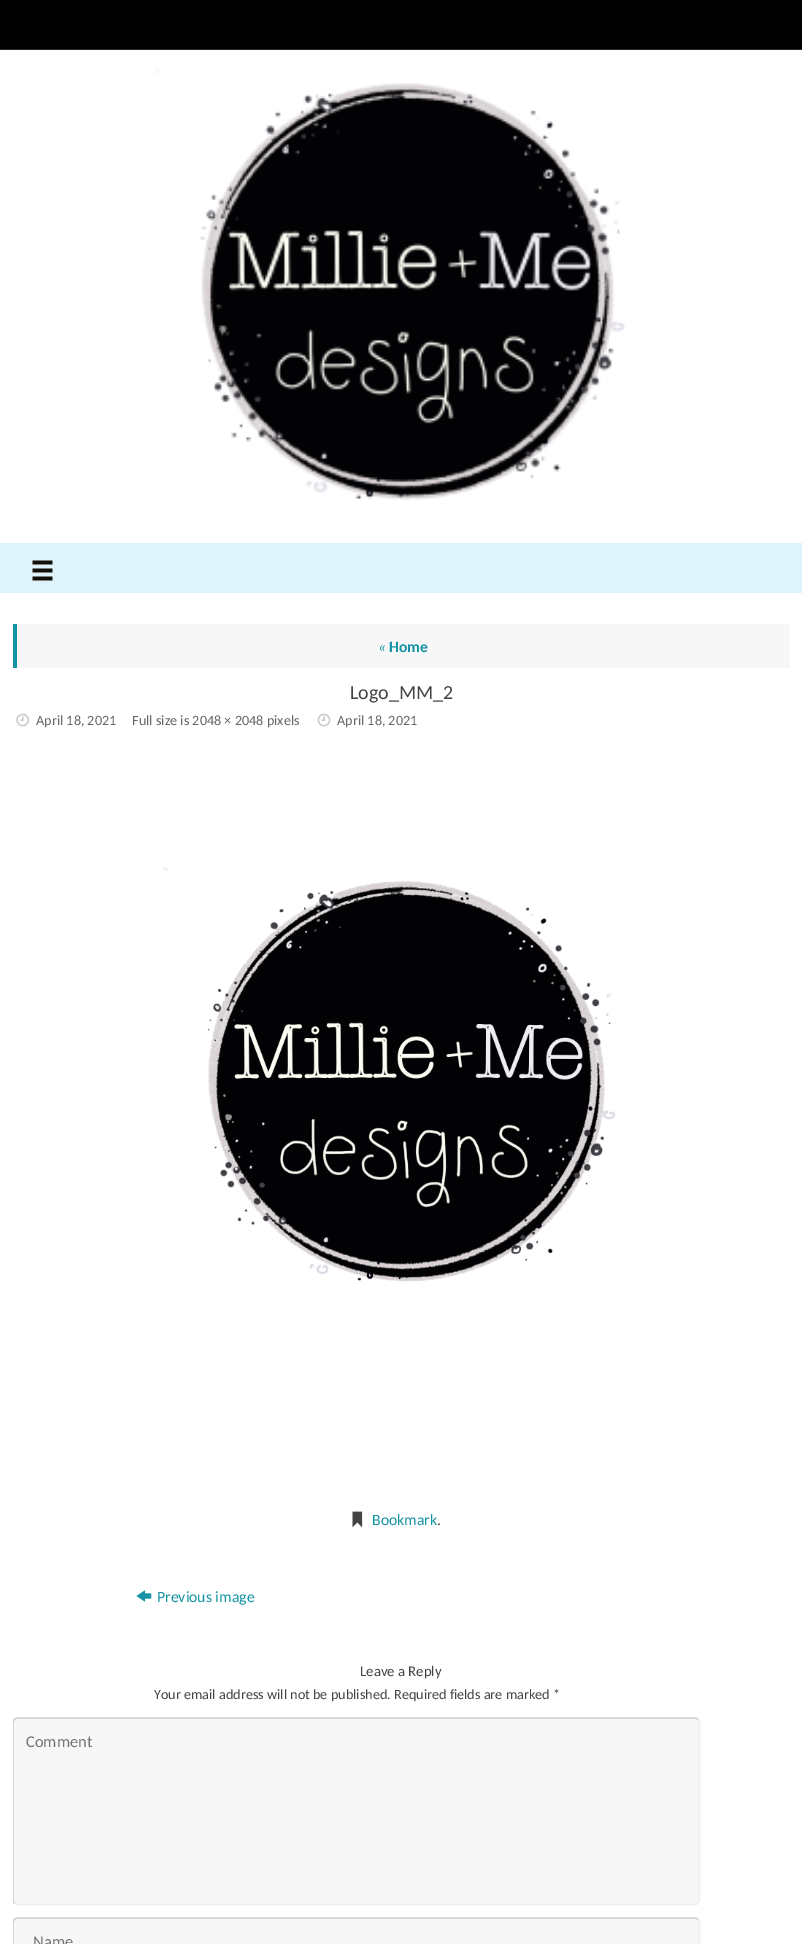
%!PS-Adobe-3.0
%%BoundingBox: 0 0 802 1944
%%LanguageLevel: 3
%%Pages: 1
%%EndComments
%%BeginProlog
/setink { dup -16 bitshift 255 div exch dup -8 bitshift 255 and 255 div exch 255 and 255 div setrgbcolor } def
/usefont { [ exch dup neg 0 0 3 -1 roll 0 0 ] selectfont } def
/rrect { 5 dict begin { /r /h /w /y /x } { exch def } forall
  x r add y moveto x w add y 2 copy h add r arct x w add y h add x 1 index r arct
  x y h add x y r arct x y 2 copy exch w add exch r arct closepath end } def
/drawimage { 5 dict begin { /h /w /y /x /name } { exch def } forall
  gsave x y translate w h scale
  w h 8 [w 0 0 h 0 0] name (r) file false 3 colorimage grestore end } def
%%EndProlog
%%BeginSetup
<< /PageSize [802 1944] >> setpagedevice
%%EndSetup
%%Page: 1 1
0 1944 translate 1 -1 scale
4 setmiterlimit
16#FFFFFF setink
0 0 802 1944 rectfill
16#000000 setink
0 0 802 49 rectfill
16#282828 setink
0 49 802 1 rectfill
(img1.raw) 155 68 471 433 drawimage
16#DFF3FD setink
0 543 802 50 rectfill
(img2.raw) 32 560 21 21 drawimage
16#F7F7F7 setink
17 624 773 44 rectfill
16#1693A5 setink
13 624 4 44 rectfill
/Carlito-Italic 15.75 usefont
378 652 moveto («) show
/Carlito-Bold 15.75 usefont
389 652 moveto (Home) show
/Carlito-Regular 20 usefont
16#444444 setink
350 699 moveto (Logo_MM_2) show
(img3.raw) 16 713 14 14 drawimage
/Carlito-Regular 14.2 usefont
16#666666 setink
36 725 moveto (April 18, 2021) show
132 725 moveto (Full size is 2048 × 2048 pixels) show
(img4.raw) 317 713 14 14 drawimage
337 725 moveto (April 18, 2021) show
(img5.raw) 163 867 469 415 drawimage
(img6.raw) 352 1511 11 17 drawimage
/Carlito-Regular 15.75 usefont
16#1693A5 setink
372 1525 moveto (Bookmark) show
16#444444 setink
437 1525 moveto (.) show
(img7.raw) 136 1590 16 12 drawimage
16#1693A5 setink
157 1602 moveto (Previous image) show
/Carlito-Regular 14.75 usefont
16#444444 setink
360 1676 moveto (Leave a Reply) show
/Carlito-Regular 14.2 usefont
154 1699 moveto (Your email address will not be published. Required fields are marked *) show
16#F7F7F7 setink
13 1718 687 187 5 rrect fill
16#EEEEEE setink
1.2 setlinewidth
698 1719.5 moveto 699 1720 699.5 1721.5 699.5 1722.5 curveto 699.5 1900 lineto 699.5 1901 699 1902.5 698 1903 curveto 697.5 1904 696 1904.5 695 1904.5 curveto 17.5 1904.5 lineto 16.5 1904.5 15 1904 14.5 1903 curveto stroke
gsave
13 1656 777 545 rectclip
16#CCCCCC setink
14.5 1903 moveto 13.5 1902.5 13 1901 13 1900 curveto 13 1722.5 lineto 13 1721.5 13.5 1720 14.5 1719.5 curveto 15 1718.5 16.5 1718 17.5 1718 curveto 695 1718 lineto 696 1718 697.5 1718.5 698 1719.5 curveto stroke
grestore
/Carlito-Regular 16.5 usefont
16#757575 setink
26 1747 moveto (Comment) show
16#F7F7F7 setink
13 1918 687 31 5 rrect fill
16#EEEEEE setink
698 1919.5 moveto 699 1920 699.5 1921.5 699.5 1922.5 curveto 699.5 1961 lineto 699.5 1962.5 699 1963.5 698 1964.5 curveto 697.5 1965 696 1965.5 695 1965.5 curveto 17.5 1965.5 lineto 16.5 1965.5 15 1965 14.5 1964.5 curveto stroke
gsave
13 1656 777 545 rectclip
16#CCCCCC setink
14.5 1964.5 moveto 13.5 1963.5 13 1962.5 13 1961 curveto 13 1922.5 lineto 13 1921.5 13.5 1920 14.5 1919.5 curveto 15 1918.5 16.5 1918 17.5 1918 curveto 695 1918 lineto 696 1918 697.5 1918.5 698 1919.5 curveto stroke
grestore
16#757575 setink
33 1947 moveto (Name) show
showpage
%%EOF
